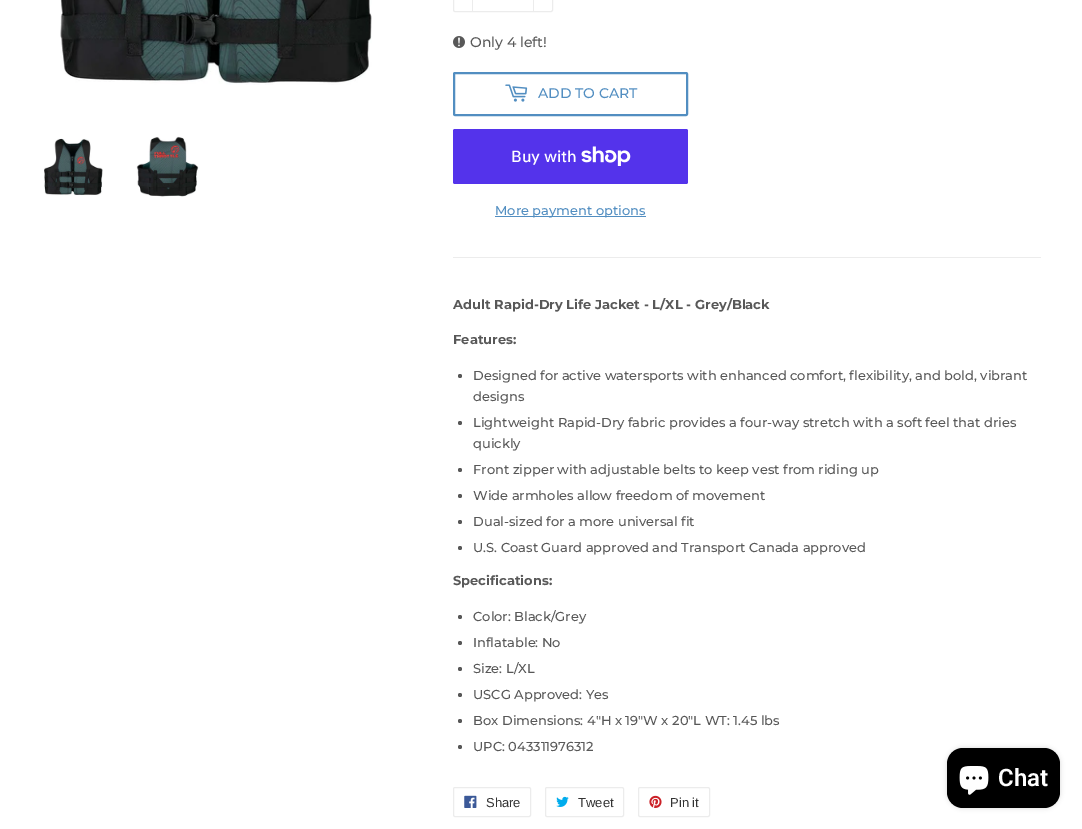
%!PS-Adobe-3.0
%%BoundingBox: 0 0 1082 829
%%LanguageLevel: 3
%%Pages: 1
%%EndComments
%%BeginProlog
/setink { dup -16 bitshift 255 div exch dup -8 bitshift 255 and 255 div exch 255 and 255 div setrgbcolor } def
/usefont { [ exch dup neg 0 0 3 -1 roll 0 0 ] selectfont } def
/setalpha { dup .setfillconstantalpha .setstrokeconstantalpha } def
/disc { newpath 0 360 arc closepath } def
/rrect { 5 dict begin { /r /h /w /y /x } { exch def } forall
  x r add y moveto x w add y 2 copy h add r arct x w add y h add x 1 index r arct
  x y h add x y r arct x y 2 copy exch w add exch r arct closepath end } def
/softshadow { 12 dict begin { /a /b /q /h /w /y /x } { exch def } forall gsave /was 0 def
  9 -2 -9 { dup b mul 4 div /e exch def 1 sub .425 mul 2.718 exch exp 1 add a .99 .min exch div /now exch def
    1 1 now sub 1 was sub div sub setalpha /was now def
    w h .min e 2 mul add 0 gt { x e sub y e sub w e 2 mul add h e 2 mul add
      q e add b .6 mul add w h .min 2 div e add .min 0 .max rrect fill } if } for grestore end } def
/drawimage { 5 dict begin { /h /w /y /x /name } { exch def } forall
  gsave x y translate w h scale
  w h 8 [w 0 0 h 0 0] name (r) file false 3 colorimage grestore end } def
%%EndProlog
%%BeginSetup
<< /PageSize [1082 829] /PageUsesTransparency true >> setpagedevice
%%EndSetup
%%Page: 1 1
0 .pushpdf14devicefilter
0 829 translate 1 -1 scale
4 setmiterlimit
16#FFFFFF setink
0 0 1082 829 rectfill
(img1.raw) 60 0 312 85 drawimage
(img2.raw) 44 138 59 58 drawimage
(img3.raw) 136 136 63 61 drawimage
16#ECECEC setink
453.5 -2.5 99 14 1.5 rrect stroke
472 0 1 12 rectfill
533 0 1 12 rectfill
(img4.raw) 453 36 12 12 drawimage
/Montserrat-Medium 14 usefont
16#585858 setink
470 47 moveto (Only 4 left!) show
16#528EC1 setink
2 setlinewidth
454 73 233 42 1 rrect stroke
(img5.raw) 505 84 23 18 drawimage
538 98 moveto (ADD TO CART) show
16#5433EB setink
453 129 235 55 2 rrect fill
/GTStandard-Medium 16 usefont
16#FFFFFF setink
511 162 moveto (Buy with) show
(img6.raw) 581 146 50 20 drawimage
16#528EC1 setink
495 216 151 1 rectfill
/Montserrat-Medium 13 usefont
495 215 moveto (More payment options) show
16#ECECEC setink
453 257 588 1 rectfill
/Montserrat-Bold 13 usefont
16#585858 setink
453 309 moveto (Adult Rapid-Dry Life Jacket - L/XL - Grey/Black) show
453 344 moveto (Features:) show
460 376 2 disc fill
/Montserrat-Medium 13 usefont
473 380 moveto (Designed for active watersports with enhanced comfort, flexibility, and bold, vibrant) show
473 401 moveto (designs) show
460 423 2 disc fill
473 427 moveto (Lightweight Rapid-Dry fabric provides a four-way stretch with a soft feel that dries) show
473 448 moveto (quickly) show
460 470 2 disc fill
473 474 moveto (Front zipper with adjustable belts to keep vest from riding up) show
460 496 2 disc fill
473 500 moveto (Wide armholes allow freedom of movement) show
460 522 2 disc fill
473 526 moveto (Dual-sized for a more universal fit) show
460 548 2 disc fill
473 552 moveto (U.S. Coast Guard approved and Transport Canada approved) show
/Montserrat-Bold 13 usefont
453 585 moveto (Specifications:) show
460 617 2 disc fill
/Montserrat-Medium 13 usefont
473 621 moveto (Color: Black/Grey) show
460 643 2 disc fill
473 647 moveto (Inflatable: No) show
460 669 2 disc fill
473 673 moveto (Size: L/XL) show
460 695 2 disc fill
473 699 moveto (USCG Approved: Yes) show
460 721 2 disc fill
473 725 moveto (Box Dimensions: 4"H x 19"W x 20"L WT: 1.45 lbs) show
460 747 2 disc fill
473 751 moveto (UPC: 043311976312) show
16#ECECEC setink
1 setlinewidth
453.5 787.5 77 29 1.5 rrect stroke
(img7.raw) 464 795 13 13 drawimage
/LiberationSans-Regular 13 usefont
16#333333 setink
486 807 moveto (Share) show
16#ECECEC setink
545.5 787.5 78 29 1.5 rrect stroke
(img8.raw) 556 796 13 11 drawimage
16#333333 setink
578 807 moveto (Tweet) show
16#ECECEC setink
638.5 787.5 71 29 1.5 rrect stroke
(img9.raw) 649 795 13 13 drawimage
16#333333 setink
670 807 moveto (Pin it) show
16#000000 setink
947 748 113 60 16 2.5 0.15 softshadow
947 748 113 60 16 rrect fill
(img10.raw) 959 766 30 29 drawimage
/Roboto-SemiBold 24 usefont
16#FFFFFF setink
998 786 moveto (Chat) show
.poppdf14devicefilter showpage
%%EOF
